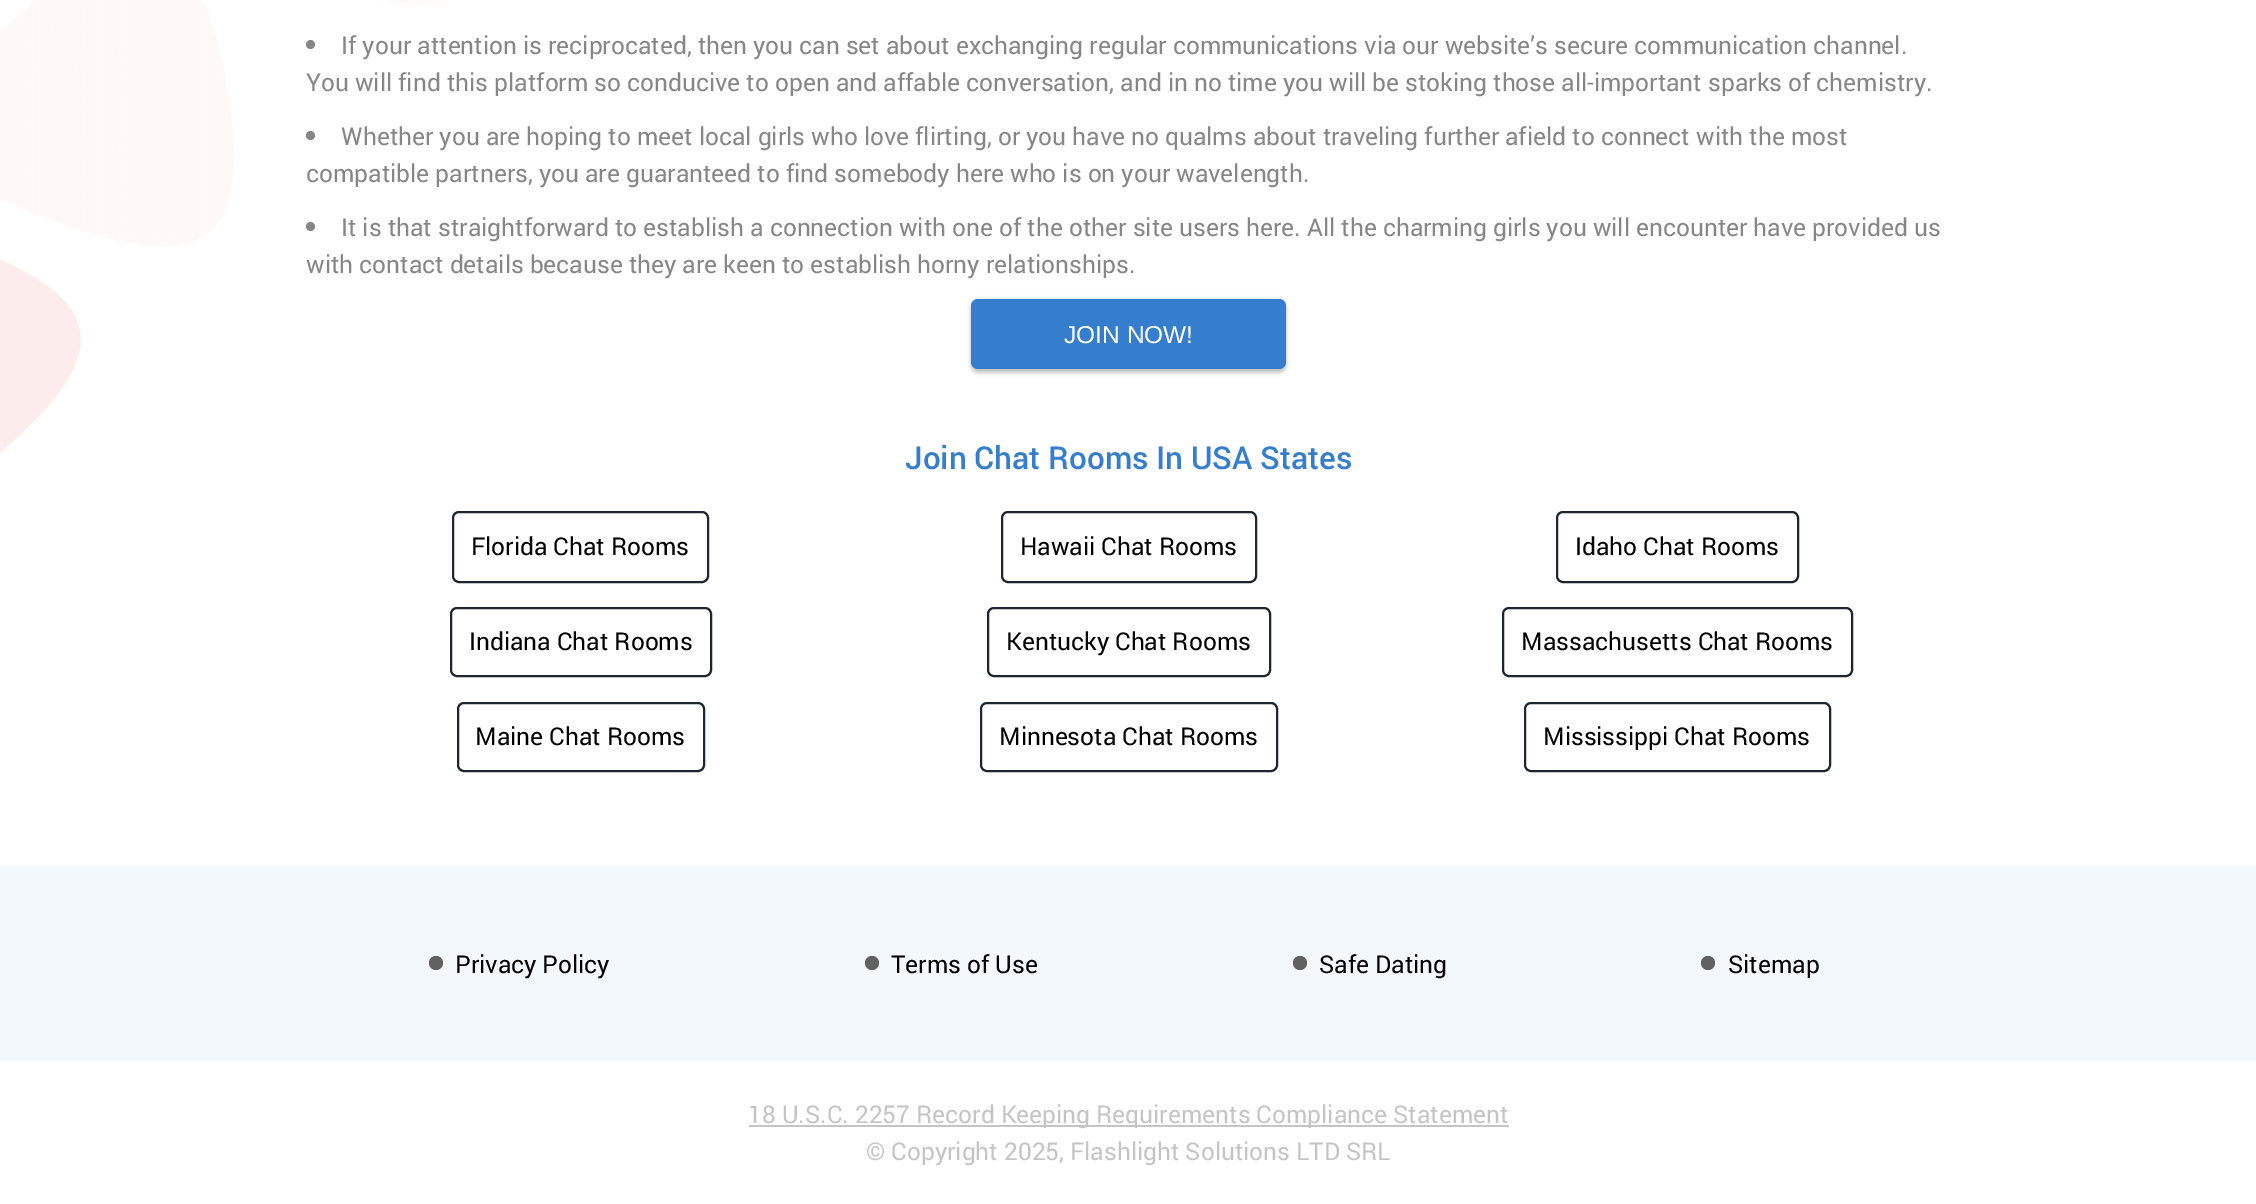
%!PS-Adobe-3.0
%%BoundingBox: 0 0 2256 1204
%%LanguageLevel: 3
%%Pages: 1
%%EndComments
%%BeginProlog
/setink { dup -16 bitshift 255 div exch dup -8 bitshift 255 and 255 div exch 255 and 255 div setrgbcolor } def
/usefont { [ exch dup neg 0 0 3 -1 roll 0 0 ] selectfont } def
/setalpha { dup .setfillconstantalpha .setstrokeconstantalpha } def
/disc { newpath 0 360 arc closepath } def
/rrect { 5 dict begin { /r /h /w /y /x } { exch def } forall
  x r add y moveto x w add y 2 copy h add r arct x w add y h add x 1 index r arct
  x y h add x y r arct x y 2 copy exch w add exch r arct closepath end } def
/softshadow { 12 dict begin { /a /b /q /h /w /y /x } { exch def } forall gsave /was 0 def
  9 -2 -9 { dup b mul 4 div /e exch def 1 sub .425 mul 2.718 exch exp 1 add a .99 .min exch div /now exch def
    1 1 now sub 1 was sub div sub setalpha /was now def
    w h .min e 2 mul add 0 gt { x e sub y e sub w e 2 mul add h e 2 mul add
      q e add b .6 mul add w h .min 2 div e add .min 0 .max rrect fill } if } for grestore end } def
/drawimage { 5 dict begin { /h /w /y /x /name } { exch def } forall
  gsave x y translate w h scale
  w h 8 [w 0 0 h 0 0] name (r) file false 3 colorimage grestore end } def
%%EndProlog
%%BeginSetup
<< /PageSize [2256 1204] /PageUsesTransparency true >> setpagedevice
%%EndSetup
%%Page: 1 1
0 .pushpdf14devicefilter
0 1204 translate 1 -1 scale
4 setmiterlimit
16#FFFFFF setink
0 0 2256 1204 rectfill
(img1.raw) 0 0 447 453 drawimage
16#868686 setink
310.5 44.5 4.5 disc fill
/Roboto-Regular 24.5 usefont
341 54 moveto (If your attention is reciprocated, then you can set about exchanging regular communications via our website’s secure communication channel.) show
306 91 moveto (You will find this platform so conducive to open and affable conversation, and in no time you will be stoking those all-important sparks of chemistry.) show
310.5 135.5 4.5 disc fill
341 145 moveto (Whether you are hoping to meet local girls who love flirting, or you have no qualms about traveling further afield to connect with the most) show
306 182 moveto (compatible partners, you are guaranteed to find somebody here who is on your wavelength.) show
310.5 226.5 4.5 disc fill
341 236 moveto (It is that straightforward to establish a connection with one of the other site users here. All the charming girls you will encounter have provided us) show
306 273 moveto (with contact details because they are keen to establish horny relationships.) show
16#000000 setink
971 299 315 70 7 2 0.1 softshadow
971 303 315 70 7 2 0.2 softshadow
16#357DCD setink
971 299 315 70 7 rrect fill
/LiberationSans-Regular 24.5 usefont
16#FFFFFF setink
1064 343 moveto (JOIN NOW!) show
/Roboto-Medium 31.5 usefont
16#357DCD setink
905 469 moveto (Join Chat Rooms In USA States) show
16#1D2630 setink
2 setlinewidth
453 512 255 70 6 rrect stroke
/Roboto-Regular 24.5 usefont
16#000000 setink
471 555 moveto (Florida Chat Rooms) show
16#1D2630 setink
1002 512 254 70 6 rrect stroke
16#000000 setink
1020 555 moveto (Hawaii Chat Rooms) show
16#1D2630 setink
1557 512 241 70 6 rrect stroke
16#000000 setink
1575 555 moveto (Idaho Chat Rooms) show
16#1D2630 setink
451 608 260 68 6 rrect stroke
16#000000 setink
469 650 moveto (Indiana Chat Rooms) show
16#1D2630 setink
988 608 282 68 6 rrect stroke
16#000000 setink
1006 650 moveto (Kentucky Chat Rooms) show
16#1D2630 setink
1503 608 349 68 6 rrect stroke
16#000000 setink
1521 650 moveto (Massachusetts Chat Rooms) show
16#1D2630 setink
458 703 246 68 6 rrect stroke
16#000000 setink
475 745 moveto (Maine Chat Rooms) show
16#1D2630 setink
981 703 296 68 6 rrect stroke
16#000000 setink
999 745 moveto (Minnesota Chat Rooms) show
16#1D2630 setink
1525 703 305 68 6 rrect stroke
16#000000 setink
1543 745 moveto (Mississippi Chat Rooms) show
16#F2F8FC setink
0 866 2256 195 rectfill
16#616161 setink
436 963 7 disc fill
16#000000 setink
455 973 moveto (Privacy Policy) show
16#616161 setink
872 963 7 disc fill
16#000000 setink
891 973 moveto (Terms of Use) show
16#616161 setink
1300 963 7 disc fill
16#000000 setink
1319 973 moveto (Safe Dating) show
16#616161 setink
1708 963 7 disc fill
16#000000 setink
1728 973 moveto (Sitemap) show
16#C4C4C4 setink
749 1125 760 2 rectfill
748 1123 moveto (18 U.S.C. 2257 Record Keeping Requirements Compliance Statement) show
866 1160 moveto (© Copyright 2025, Flashlight Solutions LTD SRL) show
.poppdf14devicefilter showpage
%%EOF
